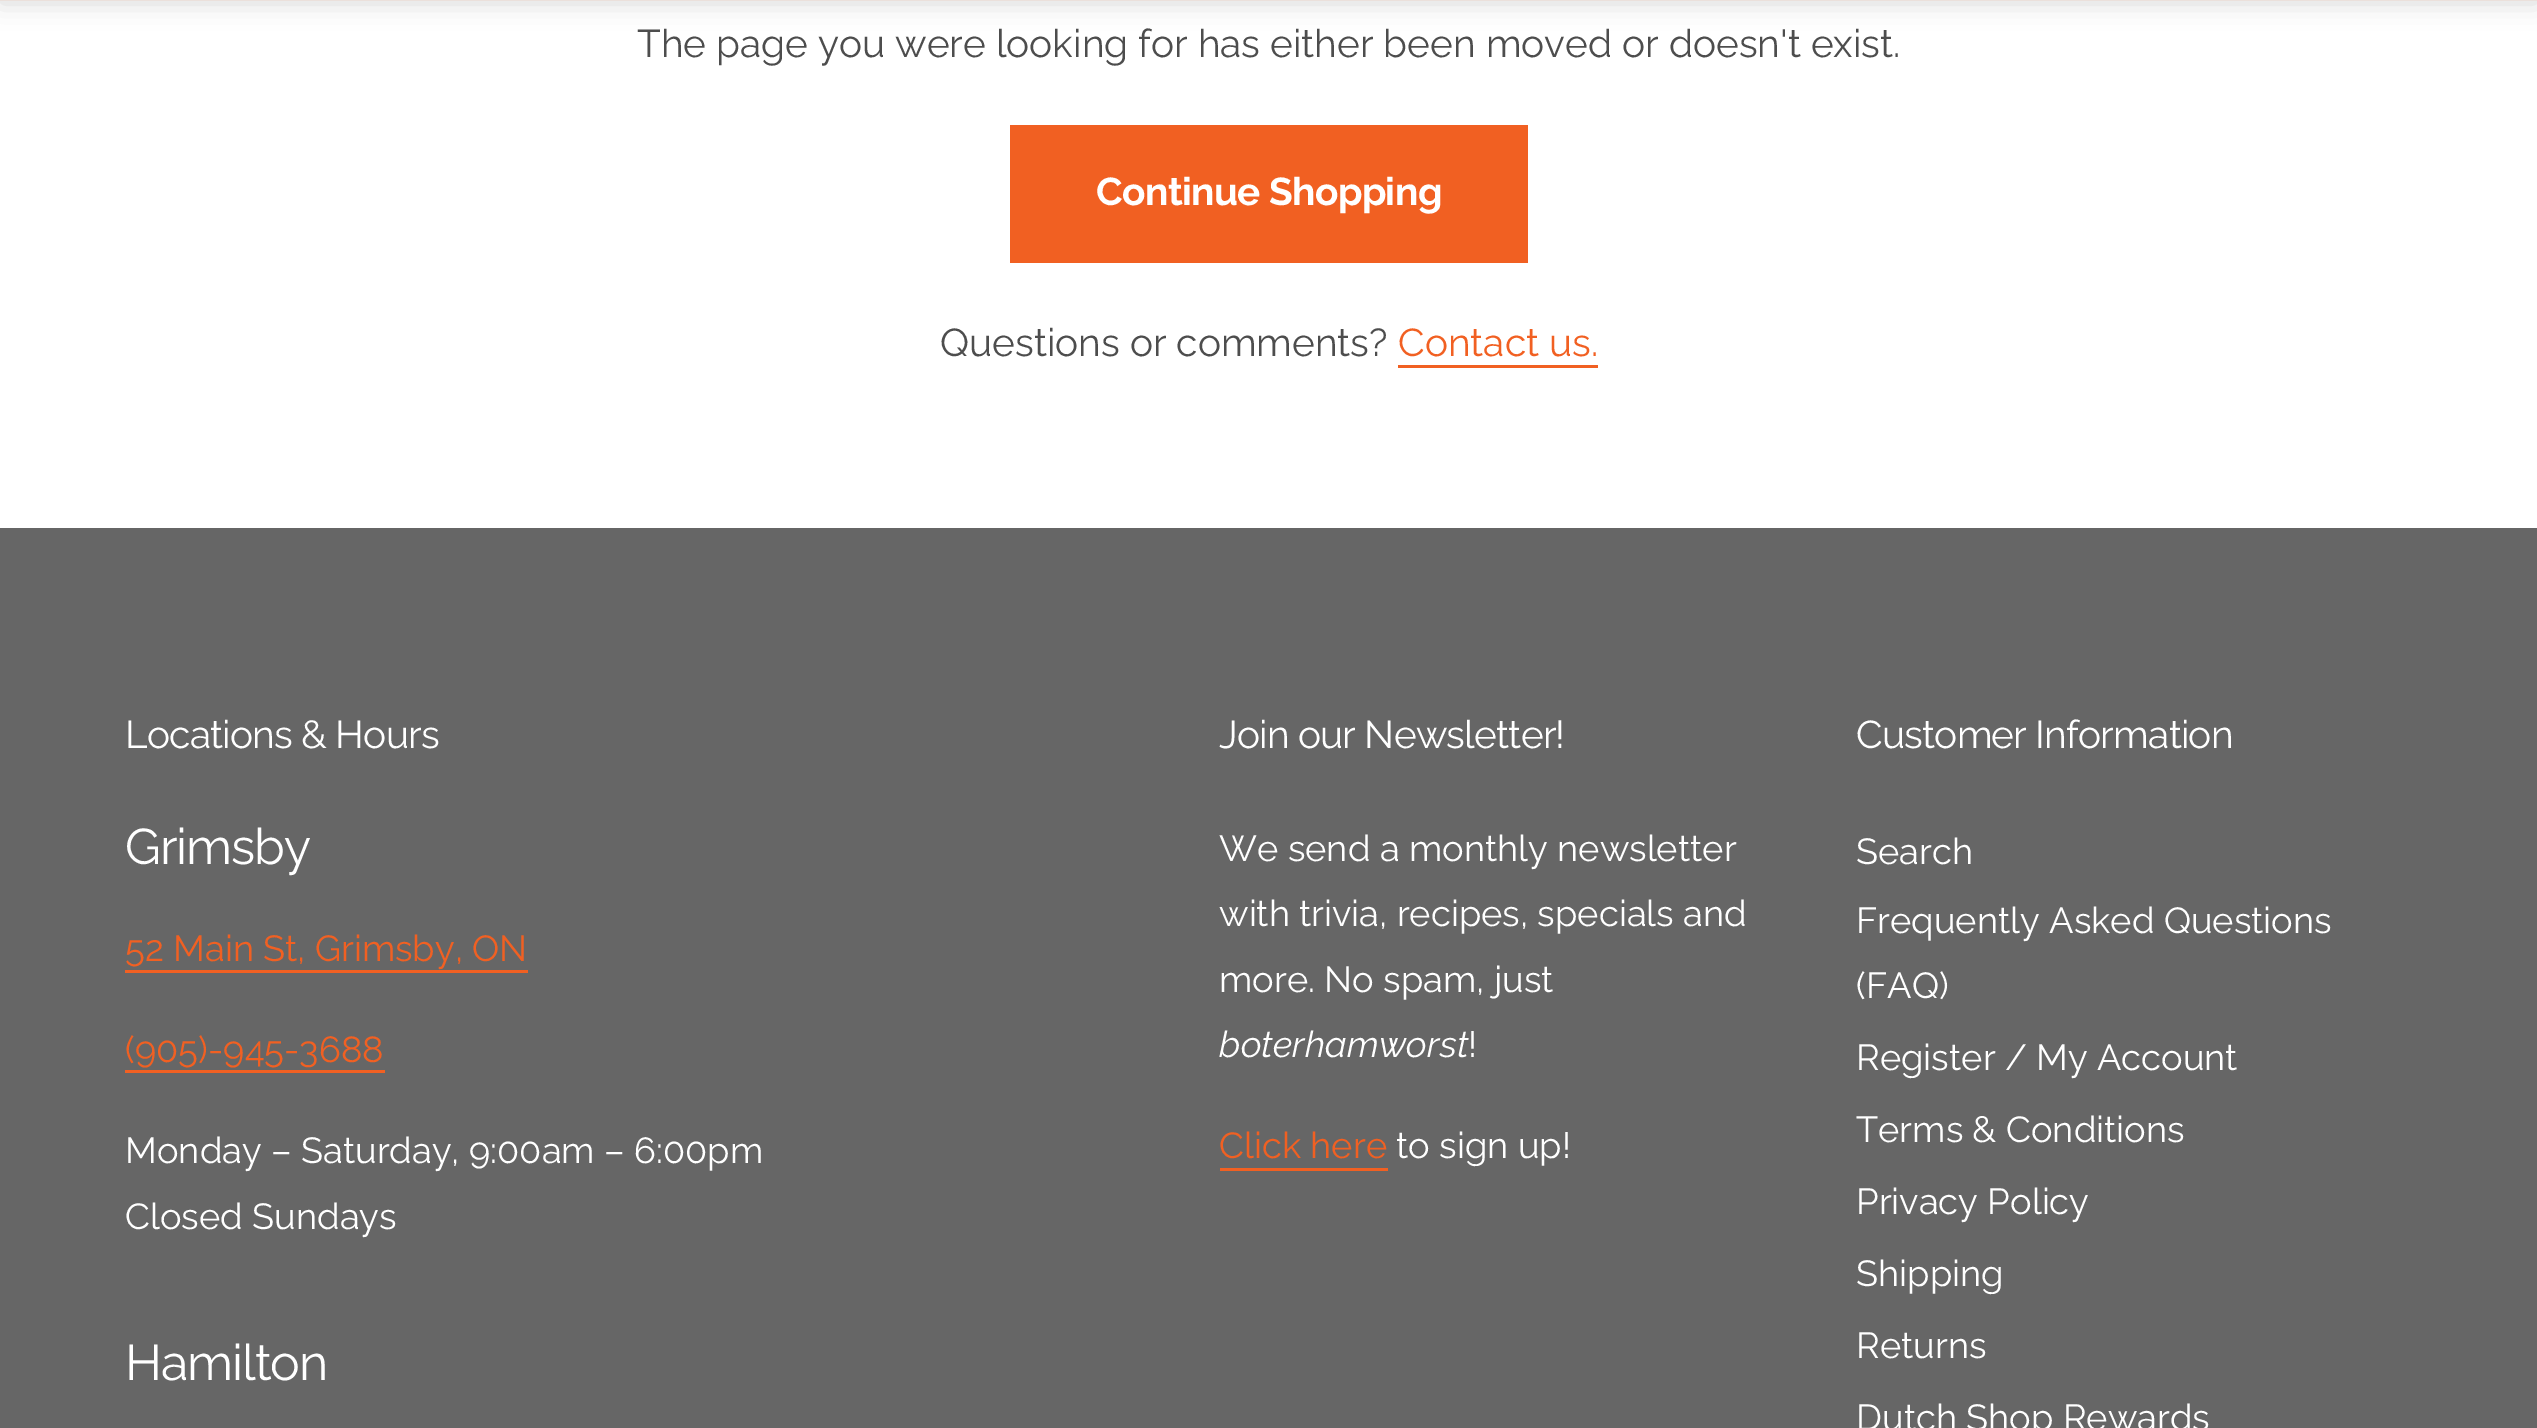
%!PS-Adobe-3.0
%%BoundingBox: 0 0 2537 1428
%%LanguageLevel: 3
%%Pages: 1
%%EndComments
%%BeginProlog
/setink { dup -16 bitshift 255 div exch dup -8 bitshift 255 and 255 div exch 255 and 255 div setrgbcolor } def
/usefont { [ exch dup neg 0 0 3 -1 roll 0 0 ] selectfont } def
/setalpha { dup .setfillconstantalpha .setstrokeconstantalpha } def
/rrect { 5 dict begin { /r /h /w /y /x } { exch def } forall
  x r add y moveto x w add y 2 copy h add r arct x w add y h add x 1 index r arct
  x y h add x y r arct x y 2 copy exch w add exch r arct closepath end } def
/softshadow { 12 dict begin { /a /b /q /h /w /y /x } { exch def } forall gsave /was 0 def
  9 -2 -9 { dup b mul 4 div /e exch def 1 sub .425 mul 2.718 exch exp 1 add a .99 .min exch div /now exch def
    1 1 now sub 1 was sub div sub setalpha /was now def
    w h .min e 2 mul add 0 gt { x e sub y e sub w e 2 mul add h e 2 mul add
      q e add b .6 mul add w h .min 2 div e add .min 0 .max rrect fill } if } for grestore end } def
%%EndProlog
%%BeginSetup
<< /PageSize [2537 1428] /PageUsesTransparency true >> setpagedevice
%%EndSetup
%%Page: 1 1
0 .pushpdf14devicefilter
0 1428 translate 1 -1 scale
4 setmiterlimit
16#FFFFFF setink
0 0 2537 1428 rectfill
16#000000 setink
0 -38 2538 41 0 12.5 0.15 softshadow
0.08 setalpha
16#F16022 setink
0 0 2537 1 rectfill
/Raleway-Regular 38.75 usefont
1 setalpha
16#4D4D4D setink
637 57 moveto 0.05 0 (The page you were looking for has either been moved or doesn't exist.) ashow
16#F16022 setink
1010 125 518 138 rectfill
/Raleway-Bold 38.75 usefont
16#FFFFFF setink
1096 205 moveto -0.6 0 (Continue Shopping) ashow
/Raleway-Regular 38.75 usefont
16#4D4D4D setink
940 356 moveto 0.05 0 (Questions or comments?) ashow
16#F16022 setink
1398 356 moveto 0.05 0 (Contact us.) ashow
1398 365 200 3 rectfill
16#666666 setink
0 528 2537 900 rectfill
16#FFFFFF setink
125 748 moveto -0.75 0 (Locations & Hours) ashow
/Raleway-Regular 50 usefont
125 864 moveto -1 0 (Grimsby) ashow
/Raleway-Regular 36.25 usefont
16#F16022 setink
125 961 moveto 0.05 0 (52 Main St, Grimsby, ON) ashow
125 970 403 3 rectfill
125 1062 moveto 0.05 0 (\(905\)-945-3688) ashow
125 1070 260 3 rectfill
16#FFFFFF setink
125 1163 moveto 0.05 0 (Monday – Saturday, 9:00am – 6:00pm) ashow
125 1229 moveto 0.05 0 (Closed Sundays) ashow
/Raleway-Regular 50 usefont
125 1380 moveto -1 0 (Hamilton) ashow
/Raleway-Regular 38.75 usefont
1219 748 moveto -0.75 0 (Join our Newsletter!) ashow
/Raleway-Regular 36.25 usefont
1219 861 moveto 0.05 0 (We send a monthly newsletter) ashow
1219 926 moveto 0.05 0 (with trivia, recipes, specials and) ashow
1219 992 moveto 0.05 0 (more. No spam, just) ashow
/Raleway-Italic 36.25 usefont
1219 1057 moveto 0.05 0 (boterhamworst) ashow
/Raleway-Regular 36.25 usefont
1468 1057 moveto 0.05 0 (!) ashow
16#F16022 setink
1219 1158 moveto 0.05 0 (Click here) ashow
1220 1168 168 3 rectfill
16#FFFFFF setink
1396 1158 moveto 0.05 0 (to sign up!) ashow
/Raleway-Regular 38.75 usefont
1856 748 moveto -0.75 0 (Customer Information) ashow
/Raleway-Regular 36.25 usefont
1856 864 moveto 0.05 0 (Search) ashow
1856 933 moveto 0.05 0 (Frequently Asked Questions) ashow
1856 998 moveto 0.05 0 (\(FAQ\)) ashow
1856 1070 moveto 0.05 0 (Register / My Account) ashow
1856 1142 moveto 0.05 0 (Terms & Conditions) ashow
1856 1214 moveto 0.05 0 (Privacy Policy) ashow
1856 1286 moveto 0.05 0 (Shipping) ashow
1856 1358 moveto 0.05 0 (Returns) ashow
1856 1430 moveto 0.05 0 (Dutch Shop Rewards) ashow
.poppdf14devicefilter showpage
%%EOF
